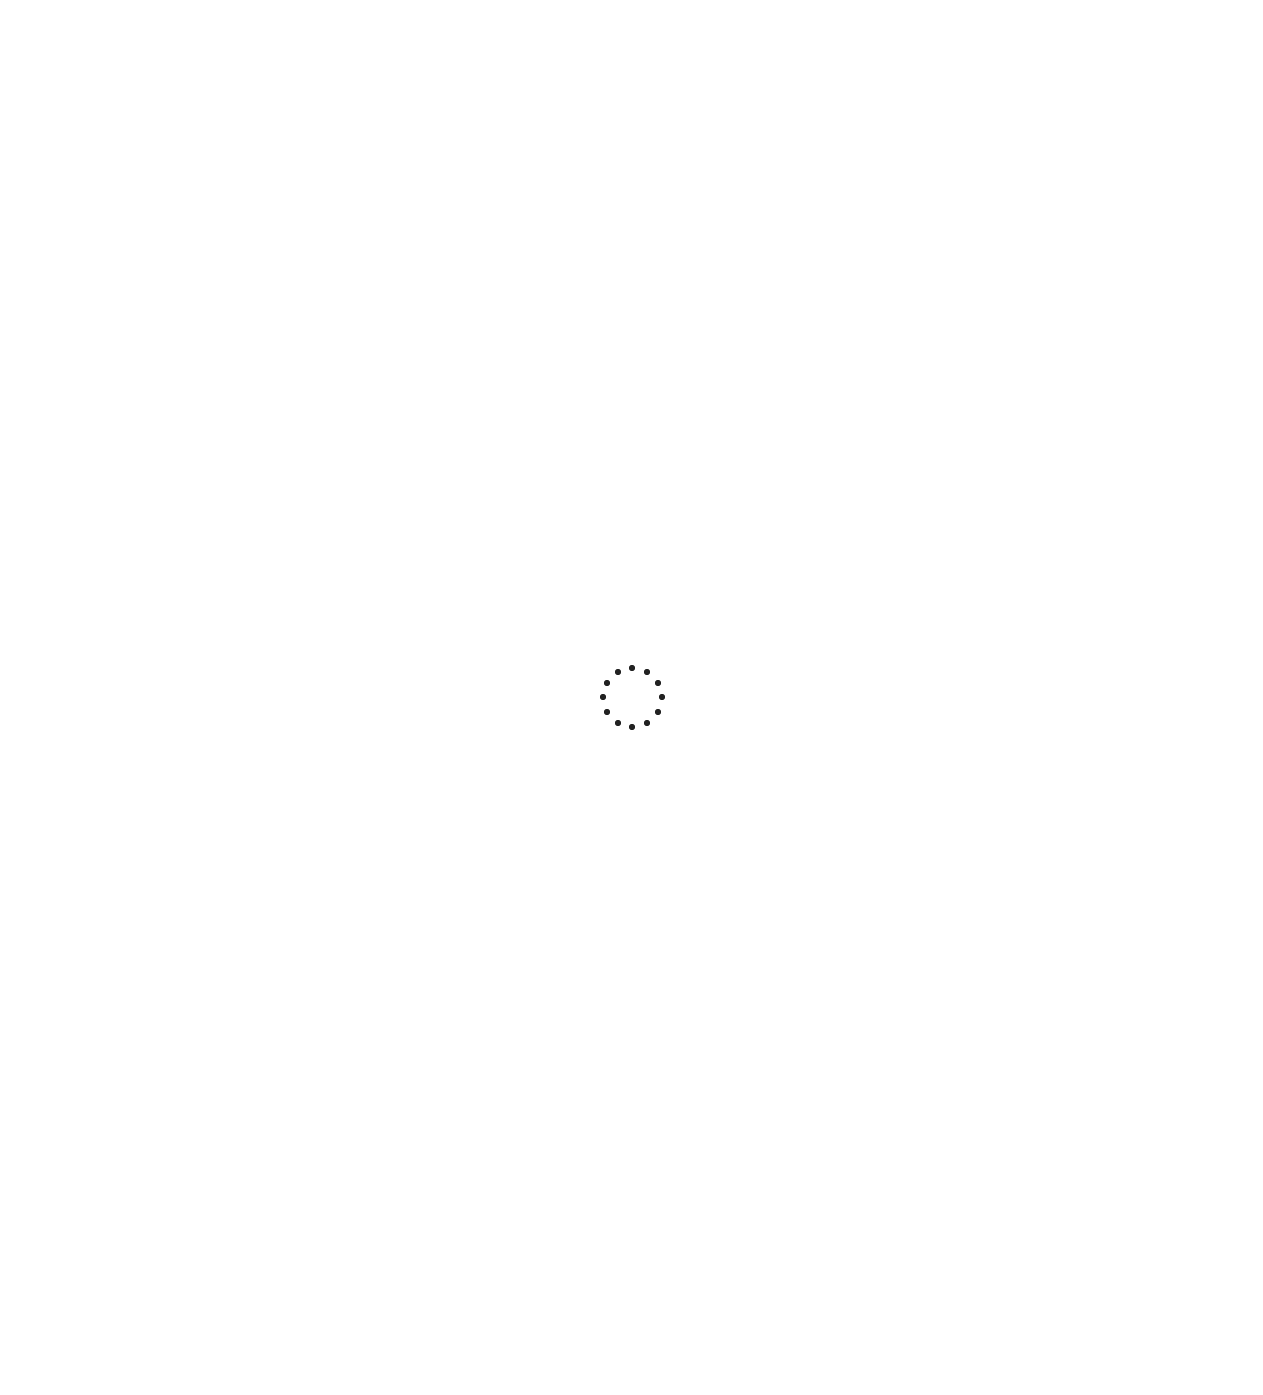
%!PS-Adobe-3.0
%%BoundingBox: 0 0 1263 1395
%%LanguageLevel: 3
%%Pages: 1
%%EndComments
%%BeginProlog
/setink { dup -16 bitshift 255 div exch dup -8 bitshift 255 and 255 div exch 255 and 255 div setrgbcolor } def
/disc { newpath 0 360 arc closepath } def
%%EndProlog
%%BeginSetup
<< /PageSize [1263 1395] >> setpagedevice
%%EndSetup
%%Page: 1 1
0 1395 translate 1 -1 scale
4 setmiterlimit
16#FFFFFF setink
0 0 1263 1395 rectfill
16#222222 setink
632 668 3 disc fill
618 672 3 disc fill
647 672 3 disc fill
607 683 3 disc fill
658 683 3 disc fill
603 697 3 disc fill
662 697 3 disc fill
607 712 3 disc fill
658 712 3 disc fill
618 723 3 disc fill
647 723 3 disc fill
632 727 3 disc fill
showpage
%%EOF
